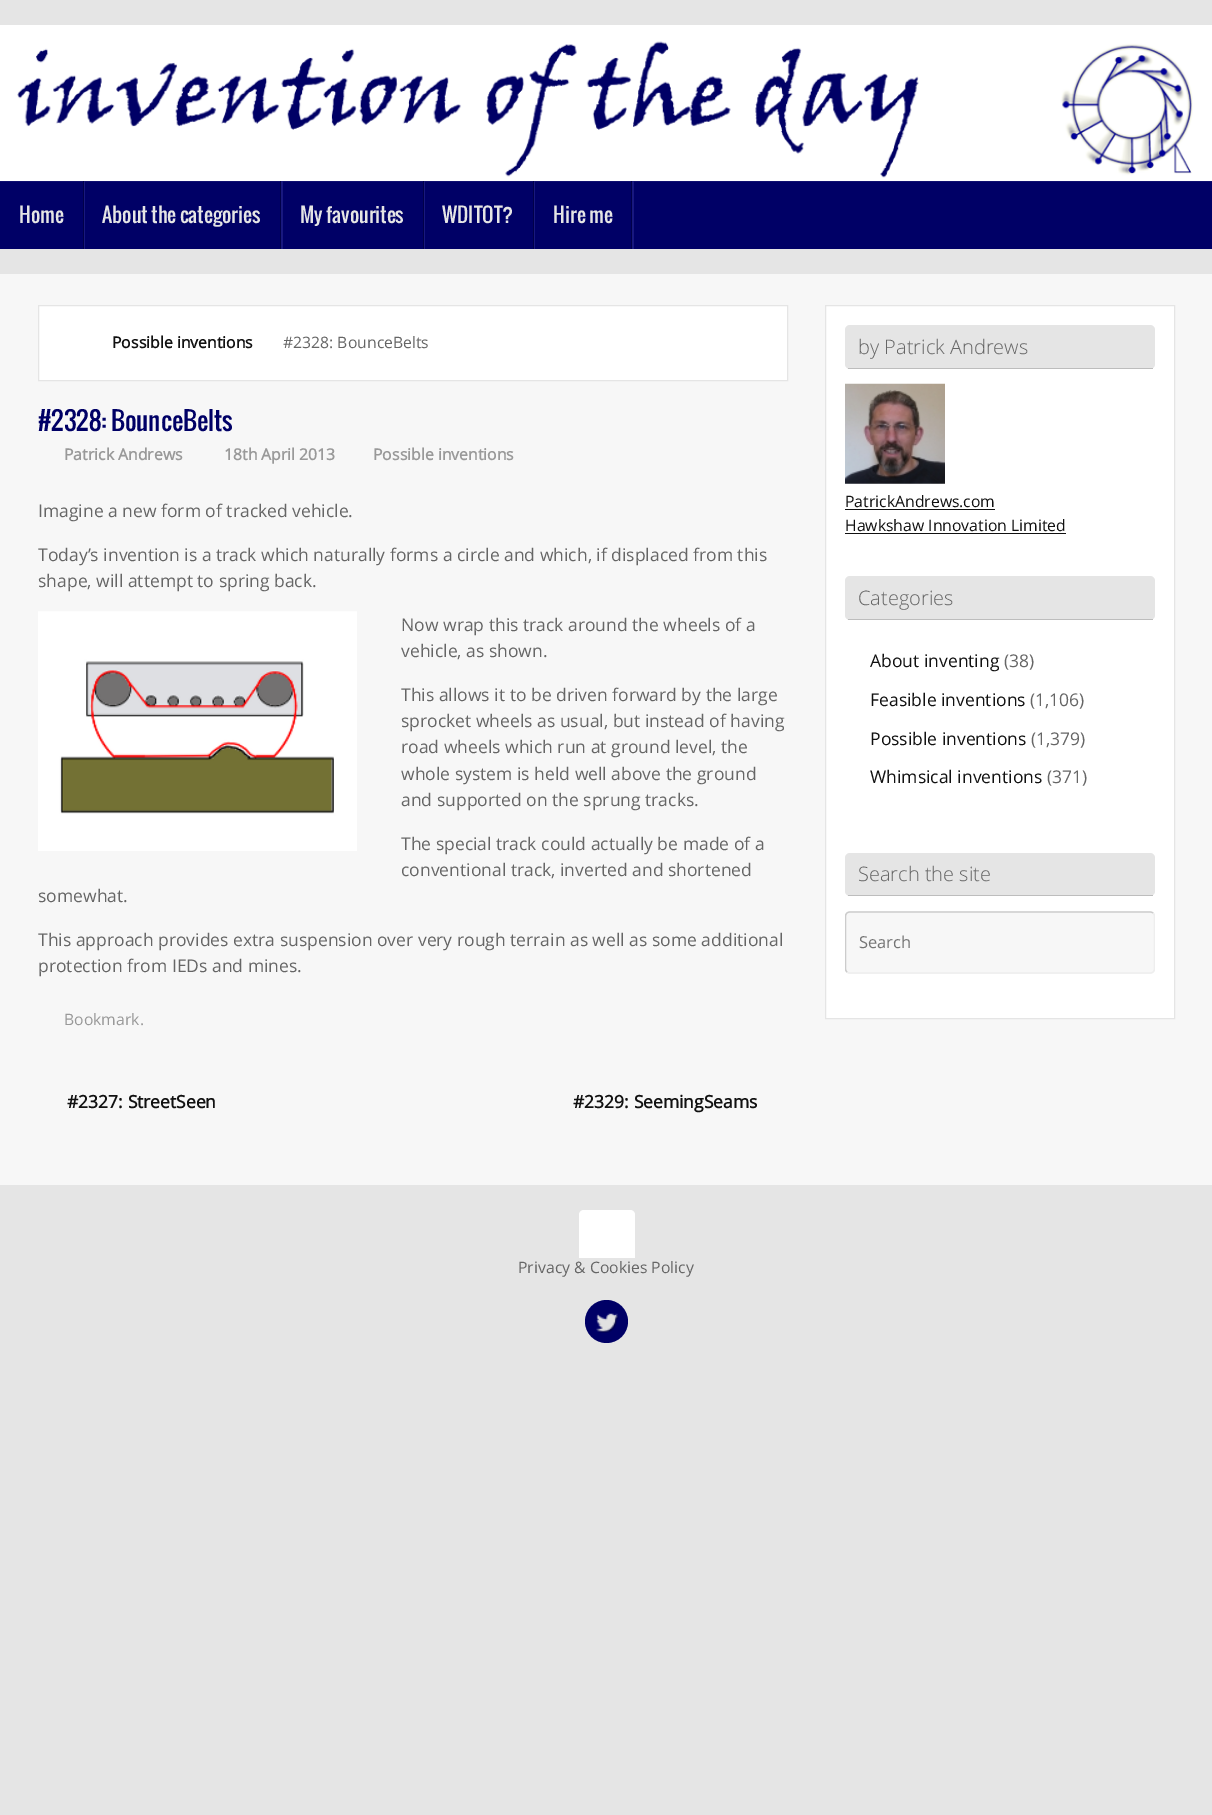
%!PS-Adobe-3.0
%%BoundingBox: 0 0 1212 1815
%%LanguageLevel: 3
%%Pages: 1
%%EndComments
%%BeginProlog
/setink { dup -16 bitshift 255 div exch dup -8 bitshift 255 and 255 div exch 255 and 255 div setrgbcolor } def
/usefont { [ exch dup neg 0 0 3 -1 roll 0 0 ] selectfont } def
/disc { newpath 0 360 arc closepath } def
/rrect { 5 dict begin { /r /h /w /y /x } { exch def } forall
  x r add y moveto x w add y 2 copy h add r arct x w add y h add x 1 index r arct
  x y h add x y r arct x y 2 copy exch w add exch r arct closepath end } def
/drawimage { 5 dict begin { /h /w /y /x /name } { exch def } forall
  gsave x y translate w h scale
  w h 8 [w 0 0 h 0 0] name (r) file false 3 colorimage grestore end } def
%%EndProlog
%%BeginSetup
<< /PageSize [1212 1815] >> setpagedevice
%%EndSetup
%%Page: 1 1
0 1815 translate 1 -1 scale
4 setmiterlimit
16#E5E5E5 setink
0 0 1212 1815 rectfill
16#FFFFFF setink
0 25 1212 16 rectfill
16#000066 setink
0 181 1212 68 rectfill
(img1.raw) 0 41 1212 141 drawimage
16#18187E setink
1 181 moveto 84 181 lineto 84 249 lineto 1 249 lineto 85 249 lineto 85 181 lineto closepath fill
16#000048 setink
83 181 1 68 rectfill
/Oswald-Regular 20 usefont
16#E5E5E5 setink
19 223 moveto (Home) show
16#18187E setink
85 181 moveto 281 181 lineto 281 249 lineto 85 249 lineto 283 249 lineto 283 181 lineto closepath fill
16#000048 setink
280 181 1 68 rectfill
16#E5E5E5 setink
102 223 moveto (About the categories) show
16#18187E setink
283 181 moveto 424 181 lineto 424 249 lineto 283 249 lineto 425 249 lineto 425 181 lineto closepath fill
16#000048 setink
423 181 1 68 rectfill
16#E5E5E5 setink
300 223 moveto (My favourites) show
16#18187E setink
425 181 moveto 534 181 lineto 534 249 lineto 425 249 lineto 535 249 lineto 535 181 lineto closepath fill
16#000048 setink
533 181 1 68 rectfill
16#E5E5E5 setink
442 223 moveto (WDITOT?) show
16#18187E setink
535 181 moveto 632 181 lineto 632 249 lineto 535 249 lineto 634 249 lineto 634 181 lineto closepath fill
16#000048 setink
631 181 1 68 rectfill
16#E5E5E5 setink
553 223 moveto (Hire me) show
16#F7F7F7 setink
0 274 1212 911 rectfill
16#FFFFFF setink
38.5 305.5 moveto 787.5 305.5 lineto 787.5 380.5 lineto 38.5 380.5 lineto closepath gsave fill grestore
16#E5E5E5 setink
stroke
/OpenSans-Bold 15.75 usefont
16#111111 setink
112 348 moveto (Possible inventions) show
/OpenSans-Regular 15.75 usefont
16#666666 setink
283 348 moveto (#2328: BounceBelts) show
/Oswald-Regular 25 usefont
16#000066 setink
38 431 moveto (#2328: BounceBelts) show
/OpenSans-Bold 15.75 usefont
16#999999 setink
[
    [(Patrick Andrews) 64 460]
    [(18th April 2013) 224 460]
    [(Possible inventions) 373 460]
] { aload pop moveto show } forall
/OpenSans-Regular 17.5 usefont
16#666666 setink
[
    [(Imagine a new form of tracked vehicle.) 38 517]
    [(Today’s invention is a track which naturally forms a circle and which, if displaced from this) 38 561]
    [(shape, will attempt to spring back.) 38 587]
] { aload pop moveto show } forall
(img2.raw) 38 611 319 240 drawimage
[
    [(Now wrap this track around the wheels of a) 401 631]
    [(vehicle, as shown.) 401 657]
    [(This allows it to be driven forward by the large) 401 701]
    [(sprocket wheels as usual, but instead of having) 401 727]
    [(road wheels which run at ground level, the) 401 753]
    [(whole system is held well above the ground) 401 780]
    [(and supported on the sprung tracks.) 401 806]
    [(The special track could actually be made of a) 401 850]
    [(conventional track, inverted and shortened) 401 876]
    [(somewhat.) 38 902]
    [(This approach provides extra suspension over very rough terrain as well as some additional) 38 946]
    [(protection from IEDs and mines.) 38 972]
] { aload pop moveto show } forall
/OpenSans-Regular 15.75 usefont
16#999999 setink
64 1025 moveto (Bookmark.) show
/OpenSans-Bold 17.5 usefont
16#111111 setink
67 1108 moveto (#2327: StreetSeen) show
573 1108 moveto (#2329: SeemingSeams) show
16#FFFFFF setink
825.5 305.5 moveto 1174.5 305.5 lineto 1174.5 1018.5 lineto 825.5 1018.5 lineto closepath gsave fill grestore
16#E5E5E5 setink
stroke
845 325 310 44 5 rrect fill
16#BDBDBD setink
848 368 305 1 rectfill
/OpenSans-Light 20 usefont
16#666666 setink
858 354 moveto (by Patrick Andrews) show
(img3.raw) 845 383 100 101 drawimage
/OpenSans-Regular 15.75 usefont
16#111111 setink
845 507 moveto (PatrickAndrews.com) show
845 509 150 1 rectfill
845 531 moveto (Hawkshaw Innovation Limited) show
845 533 221 1 rectfill
16#E5E5E5 setink
845 576 310 44 5 rrect fill
16#BDBDBD setink
848 619 305 1 rectfill
/OpenSans-Light 20 usefont
16#666666 setink
858 605 moveto (Categories) show
/OpenSans-Regular 17.5 usefont
16#111111 setink
870 667 moveto (About inventing) show
16#666666 setink
1004 667 moveto (\(38\)) show
16#111111 setink
870 706 moveto (Feasible inventions) show
16#666666 setink
1030 706 moveto (\(1,106\)) show
16#111111 setink
870 745 moveto (Possible inventions) show
16#666666 setink
1031 745 moveto (\(1,379\)) show
16#111111 setink
870 783 moveto (Whimsical inventions) show
16#666666 setink
1047 783 moveto (\(371\)) show
16#E5E5E5 setink
845 853 310 43 5 rrect fill
16#BDBDBD setink
848 895 305 1 rectfill
/OpenSans-Light 20 usefont
16#666666 setink
858 881 moveto (Search the site) show
16#F7F7F7 setink
845 911 310 63 5 rrect fill
gsave
845 911 310 63 rectclip
16#EEEEEE setink
1.2 setlinewidth
1153 913 moveto 1154 914 1154.5 915 1154.5 916 curveto 1154.5 969 lineto 1154.5 970 1154 971 1153 972 curveto 1152.5 972.5 1151 973 1150 973 curveto 850 973 lineto 849 973 847.5 972.5 847 972 curveto stroke
16#CCCCCC setink
847 972 moveto 846 971 845.5 970 845.5 969 curveto 845.5 916 lineto 845.5 915 846 914 847 913 curveto 847.5 912.5 849 912 850 912 curveto 1150 912 lineto 1151 912 1152.5 912.5 1153 913 curveto stroke
grestore
/OpenSans-Regular 16.5 usefont
16#757575 setink
859 948 moveto (Search) show
16#FFFFFF setink
584 1210 moveto 630 1210 lineto 633 1210 635 1212 635 1215 curveto 635 1258 lineto 579 1258 lineto 579 1215 lineto 579 1212 581 1210 584 1210 curveto closepath fill
/OpenSans-Regular 15.75 usefont
16#666666 setink
518 1273 moveto (Privacy & Cookies Policy) show
16#000066 setink
606.5 1321.5 21.5 disc fill
(img4.raw) 596 1313 23 20 drawimage
showpage
%%EOF
